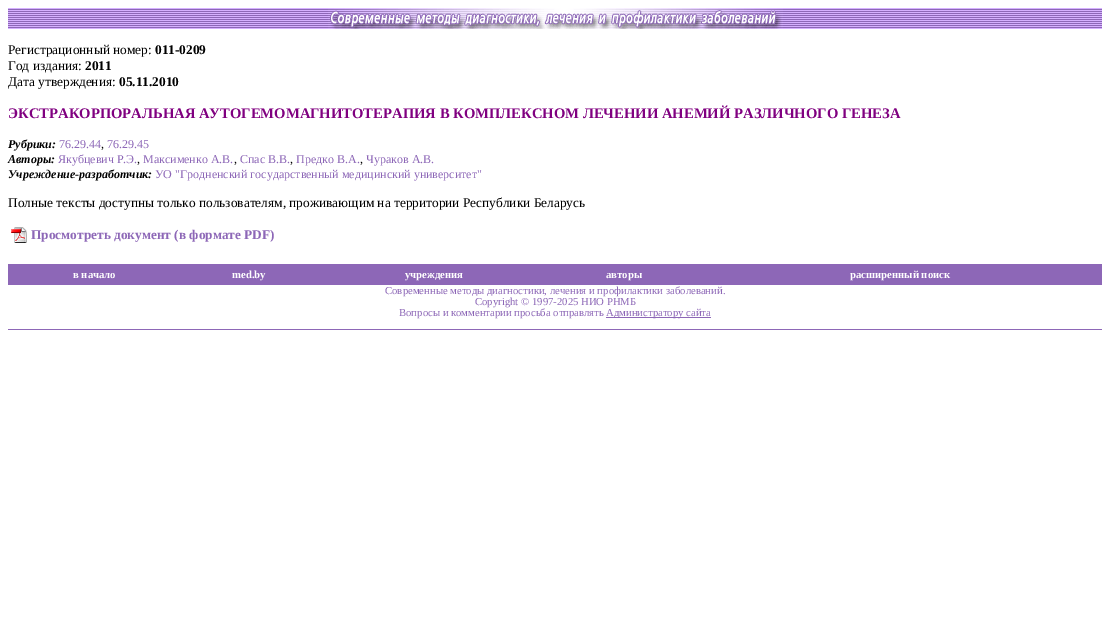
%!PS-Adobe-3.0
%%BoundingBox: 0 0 1110 638
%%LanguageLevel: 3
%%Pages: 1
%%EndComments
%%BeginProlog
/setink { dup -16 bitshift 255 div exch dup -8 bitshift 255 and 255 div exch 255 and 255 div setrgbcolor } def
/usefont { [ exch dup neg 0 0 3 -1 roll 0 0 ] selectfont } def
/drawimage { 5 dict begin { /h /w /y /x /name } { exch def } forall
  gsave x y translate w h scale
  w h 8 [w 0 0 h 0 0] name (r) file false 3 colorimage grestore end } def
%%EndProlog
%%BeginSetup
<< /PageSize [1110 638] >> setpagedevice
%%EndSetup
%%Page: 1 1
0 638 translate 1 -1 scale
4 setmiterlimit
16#FFFFFF setink
0 0 1110 638 rectfill
(img1.raw) 8 8 1094 21 drawimage
(img2.raw) 328 8 455 21 drawimage
/LiberationSerif-Regular 13.35 usefont
16#000000 setink
8 54 moveto (Регистрационный номер:) show
/LiberationSerif-Bold 13.35 usefont
155 54 moveto (011-0209) show
/LiberationSerif-Regular 13.35 usefont
8 70 moveto (Год издания:) show
/LiberationSerif-Bold 13.35 usefont
85 70 moveto (2011) show
/LiberationSerif-Regular 13.35 usefont
8 86 moveto (Дата утверждения:) show
/LiberationSerif-Bold 13.35 usefont
119 86 moveto (05.11.2010) show
/LiberationSerif-Bold 14.67 usefont
16#800080 setink
8 118 moveto (ЭКСТРАКОРПОРАЛЬНАЯ АУТОГЕМОМАГНИТОТЕРАПИЯ В КОМПЛЕКСНОМ ЛЕЧЕНИИ АНЕМИЙ РАЗЛИЧНОГО ГЕНЕЗА) show
/LiberationSerif-BoldItalic 12 usefont
16#000000 setink
8 148 moveto (Рубрики:) show
/LiberationSerif-Regular 12 usefont
16#8D67B7 setink
59 148 moveto (76.29.44) show
16#000000 setink
101 148 moveto (,) show
16#8D67B7 setink
107 148 moveto (76.29.45) show
/LiberationSerif-BoldItalic 12 usefont
16#000000 setink
8 163 moveto (Авторы:) show
/LiberationSerif-Regular 12 usefont
16#8D67B7 setink
58 163 moveto (Якубцевич Р.Э.) show
16#000000 setink
137 163 moveto (,) show
16#8D67B7 setink
143 163 moveto (Максименко А.В.) show
16#000000 setink
234 163 moveto (,) show
16#8D67B7 setink
240 163 moveto (Спас В.В.) show
16#000000 setink
290 163 moveto (,) show
16#8D67B7 setink
296 163 moveto (Предко В.А.) show
16#000000 setink
360 163 moveto (,) show
16#8D67B7 setink
366 163 moveto (Чураков А.В.) show
/LiberationSerif-BoldItalic 12 usefont
16#000000 setink
8 178 moveto (Учреждение-разработчик:) show
/LiberationSerif-Regular 12 usefont
16#8D67B7 setink
155 178 moveto (УО "Гродненский государственный медицинский университет") show
/LiberationSerif-Regular 13.35 usefont
16#000000 setink
8 207 moveto (Полные тексты доступны только пользователям, проживающим на территории Республики Беларусь) show
(img3.raw) 11 227 16 16 drawimage
/LiberationSerif-Bold 13.35 usefont
16#8D67B7 setink
31 239 moveto (Просмотреть документ \(в формате PDF\)) show
8 264 1094 21 rectfill
/LiberationSerif-Bold 10.7 usefont
16#FFFFFF setink
[
    [(в начало) 73 278]
    [(med.by) 232 278]
    [(учреждения) 405 278]
    [(авторы) 606 278]
    [(расширенный поиск) 850 278]
] { aload pop moveto show } forall
/LiberationSerif-Regular 10.7 usefont
16#8D67B7 setink
[
    [(Cовременные методы диагностики, лечения и профилактики заболеваний.) 385 294]
    [(Copyright © 1997-2025 НИО РНМБ) 475 305]
    [(Вопросы и комментарии просьба отправлять) 399 316]
] { aload pop moveto show } forall
606 317 105 1 rectfill
606 316 moveto (Администратору сайта) show
8 329 1094 1 rectfill
showpage
%%EOF
